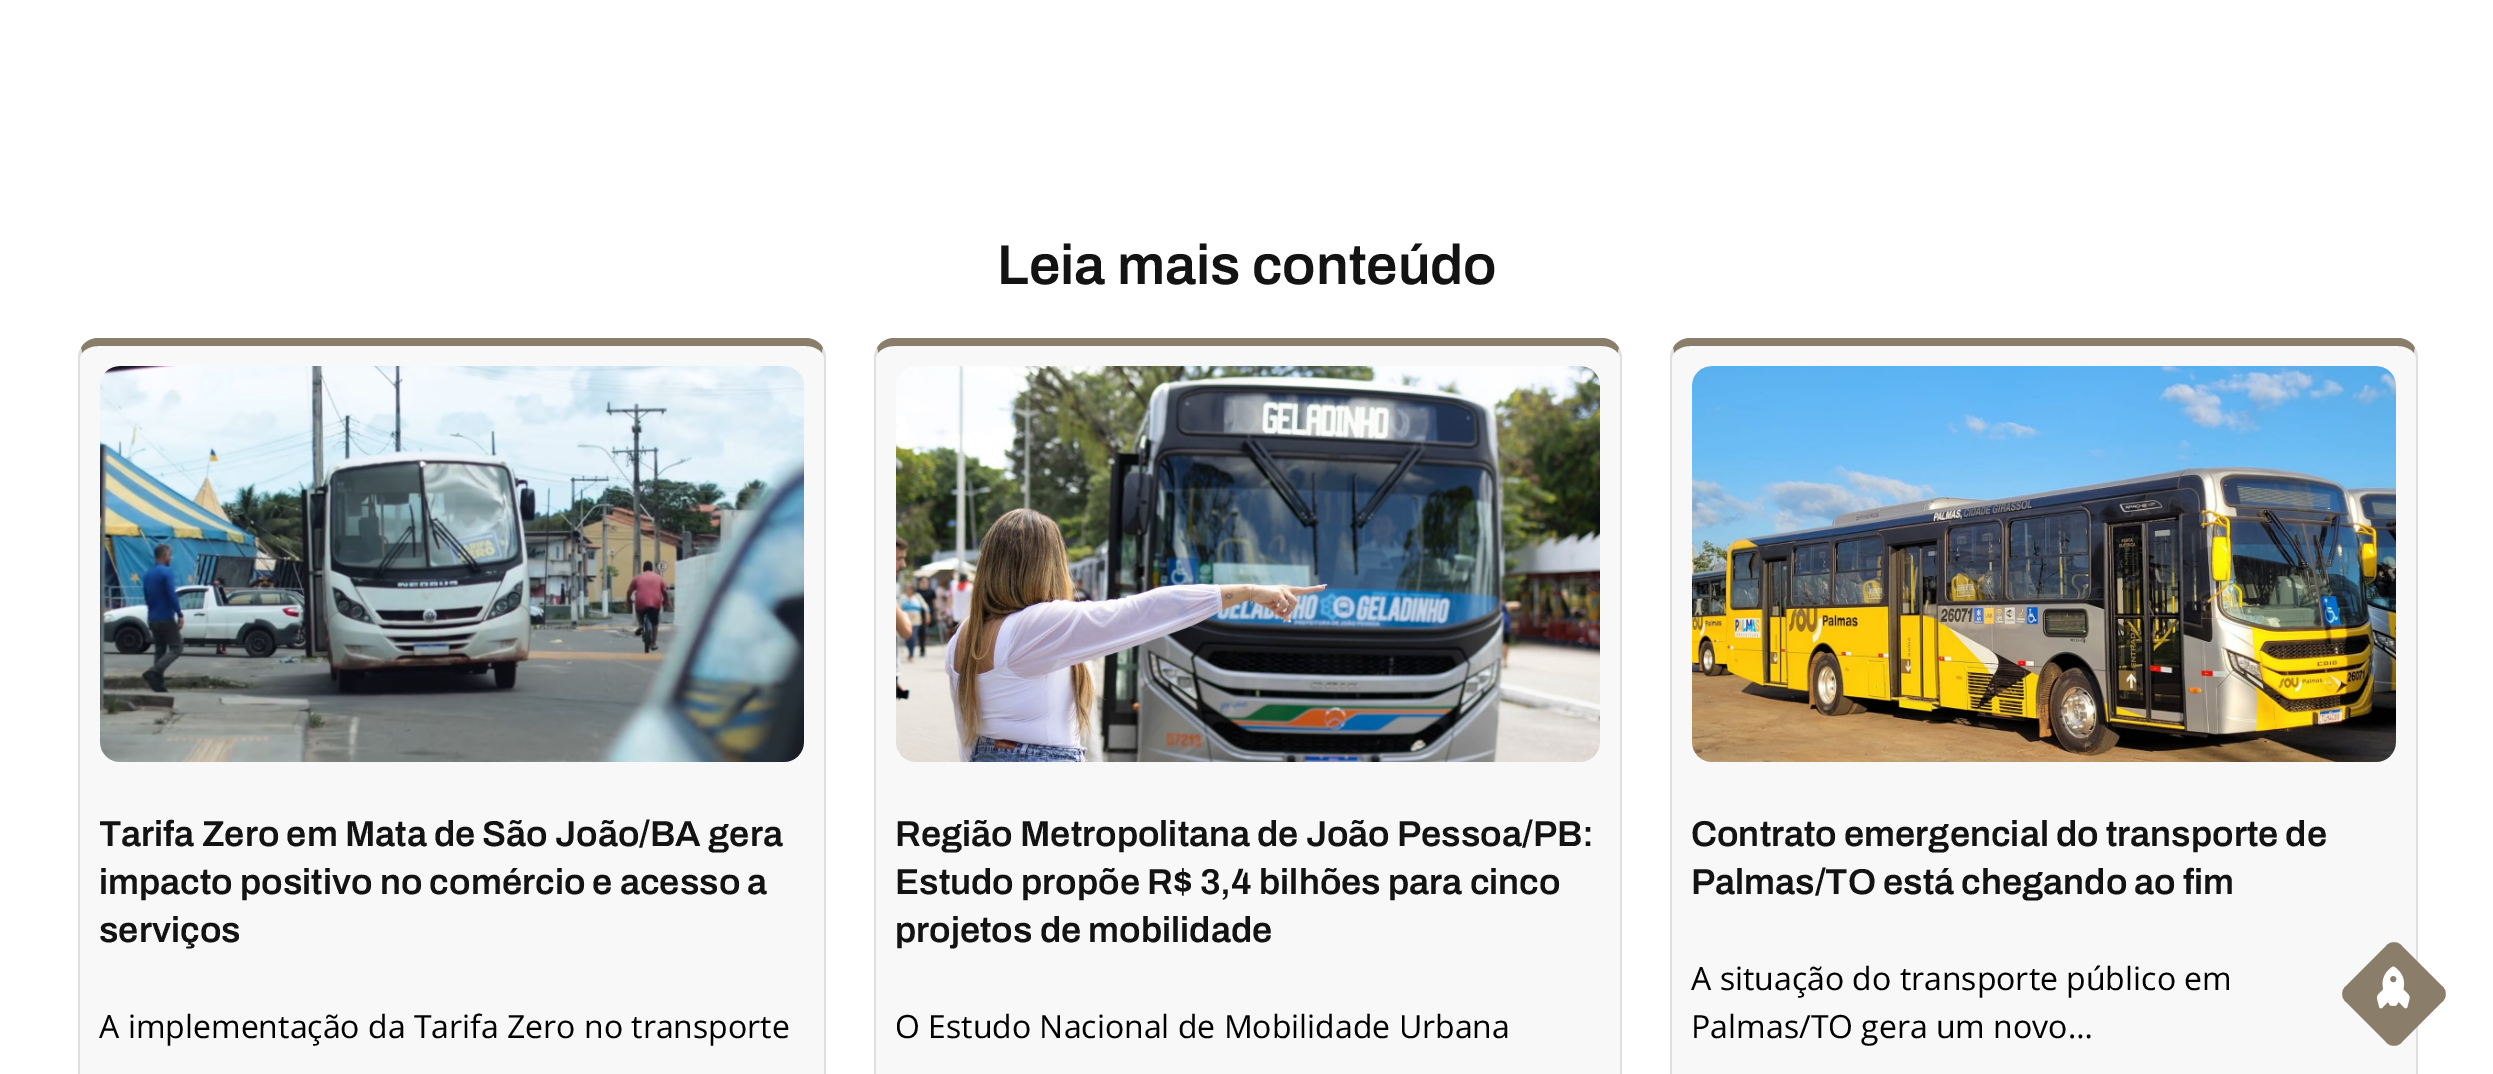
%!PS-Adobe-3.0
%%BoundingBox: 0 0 2493 1074
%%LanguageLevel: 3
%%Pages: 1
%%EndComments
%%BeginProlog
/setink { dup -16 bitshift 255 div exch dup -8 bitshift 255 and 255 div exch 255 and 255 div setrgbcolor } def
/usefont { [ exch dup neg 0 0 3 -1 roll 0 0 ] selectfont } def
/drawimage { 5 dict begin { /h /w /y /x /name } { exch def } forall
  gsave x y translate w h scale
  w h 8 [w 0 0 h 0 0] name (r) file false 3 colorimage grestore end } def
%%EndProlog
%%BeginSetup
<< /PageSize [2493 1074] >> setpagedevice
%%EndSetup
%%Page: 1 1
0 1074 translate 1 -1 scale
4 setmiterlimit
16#FFFFFF setink
0 0 2493 1074 rectfill
/Archivo-SemiBold 56 usefont
16#131313 setink
997 284 moveto (Leia mais conteúdo) show
16#F8F8F8 setink
98 346 moveto 806 346 lineto 816 346 824 351 824 358 curveto 824 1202 lineto 824 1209 816 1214 806 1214 curveto 98 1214 lineto 88 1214 80 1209 80 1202 curveto 80 358 lineto 80 351 88 346 98 346 curveto closepath fill
16#8A7D6A setink
98 338 moveto 91 338 84 342 81 348 curveto 82 353 lineto 85 349 91 346 98 346 curveto 806 346 lineto 813 346 819 349 822 353 curveto 823 348 lineto 820 342 813 338 806 338 curveto closepath fill
16#DFDFDF setink
826 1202 moveto 826 358 lineto 826 354 825 351 823 348 curveto 822 353 lineto 823 354 824 356 824 358 curveto 824 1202 lineto 824 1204 823 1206 822 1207 curveto 823 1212 lineto 825 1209 826 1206 826 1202 curveto closepath fill
78 358 moveto 78 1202 lineto 78 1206 79 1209 81 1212 curveto 82 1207 lineto 81 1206 80 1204 80 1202 curveto 80 358 lineto 80 356 81 354 82 353 curveto 81 348 lineto 79 351 78 354 78 358 curveto closepath fill
(img1.raw) 100 366 704 396 drawimage
/Archivo-SemiBold 36 usefont
16#131313 setink
[
    [(Tarifa Zero em Mata de São João/BA gera) 99 846]
    [(impacto positivo no comércio e acesso a) 99 894]
    [(serviços) 99 942]
] { aload pop moveto show } forall
/OpenSans-Regular 32 usefont
16#000000 setink
99 1038 moveto (A implementação da Tarifa Zero no transporte) show
16#F8F8F8 setink
894 346 moveto 1602 346 lineto 1612 346 1620 351 1620 358 curveto 1620 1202 lineto 1620 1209 1612 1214 1602 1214 curveto 894 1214 lineto 884 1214 876 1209 876 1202 curveto 876 358 lineto 876 351 884 346 894 346 curveto closepath fill
16#8A7D6A setink
894 338 moveto 887 338 880 342 877 348 curveto 878 353 lineto 881 349 887 346 894 346 curveto 1602 346 lineto 1609 346 1615 349 1618 353 curveto 1619 348 lineto 1616 342 1609 338 1602 338 curveto closepath fill
16#DFDFDF setink
1622 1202 moveto 1622 358 lineto 1622 354 1621 351 1619 348 curveto 1618 353 lineto 1619 354 1620 356 1620 358 curveto 1620 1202 lineto 1620 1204 1619 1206 1618 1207 curveto 1619 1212 lineto 1621 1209 1622 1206 1622 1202 curveto closepath fill
874 358 moveto 874 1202 lineto 874 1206 875 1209 877 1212 curveto 878 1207 lineto 877 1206 876 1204 876 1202 curveto 876 358 lineto 876 356 877 354 878 353 curveto 877 348 lineto 875 351 874 354 874 358 curveto closepath fill
(img2.raw) 896 366 704 396 drawimage
/Archivo-SemiBold 36 usefont
16#131313 setink
[
    [(Região Metropolitana de João Pessoa/PB:) 895 846]
    [(Estudo propõe R$ 3,4 bilhões para cinco) 895 894]
    [(projetos de mobilidade) 895 942]
] { aload pop moveto show } forall
/OpenSans-Regular 32 usefont
16#000000 setink
895 1038 moveto (O Estudo Nacional de Mobilidade Urbana) show
16#F8F8F8 setink
1690 346 moveto 2398 346 lineto 2408 346 2416 351 2416 358 curveto 2416 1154 lineto 2416 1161 2408 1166 2398 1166 curveto 1690 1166 lineto 1680 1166 1672 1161 1672 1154 curveto 1672 358 lineto 1672 351 1680 346 1690 346 curveto closepath fill
16#8A7D6A setink
1690 338 moveto 1683 338 1676 342 1673 348 curveto 1674 353 lineto 1677 349 1683 346 1690 346 curveto 2398 346 lineto 2405 346 2411 349 2414 353 curveto 2415 348 lineto 2412 342 2405 338 2398 338 curveto closepath fill
16#DFDFDF setink
2418 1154 moveto 2418 358 lineto 2418 354 2417 351 2415 348 curveto 2414 353 lineto 2415 354 2416 356 2416 358 curveto 2416 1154 lineto 2416 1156 2415 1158 2414 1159 curveto 2415 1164 lineto 2417 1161 2418 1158 2418 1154 curveto closepath fill
1670 358 moveto 1670 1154 lineto 1670 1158 1671 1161 1673 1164 curveto 1674 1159 lineto 1673 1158 1672 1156 1672 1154 curveto 1672 358 lineto 1672 356 1673 354 1674 353 curveto 1673 348 lineto 1671 351 1670 354 1670 358 curveto closepath fill
(img3.raw) 1692 366 704 396 drawimage
/Archivo-SemiBold 36 usefont
16#131313 setink
1691 846 moveto (Contrato emergencial do transporte de) show
1691 894 moveto (Palmas/TO está chegando ao fim) show
/OpenSans-Regular 32 usefont
16#000000 setink
1691 990 moveto (A situação do transporte público em) show
1691 1038 moveto (Palmas/TO gera um novo…) show
16#8A7D6A setink
2346 986 moveto 2386 946 lineto 2390 941 2398 941 2402 946 curveto 2442 986 lineto 2447 990 2447 998 2442 1002 curveto 2402 1042 lineto 2398 1047 2390 1047 2386 1042 curveto 2346 1002 lineto 2341 998 2341 990 2346 986 curveto closepath fill
(img4.raw) 2376 966 34 43 drawimage
showpage
%%EOF
